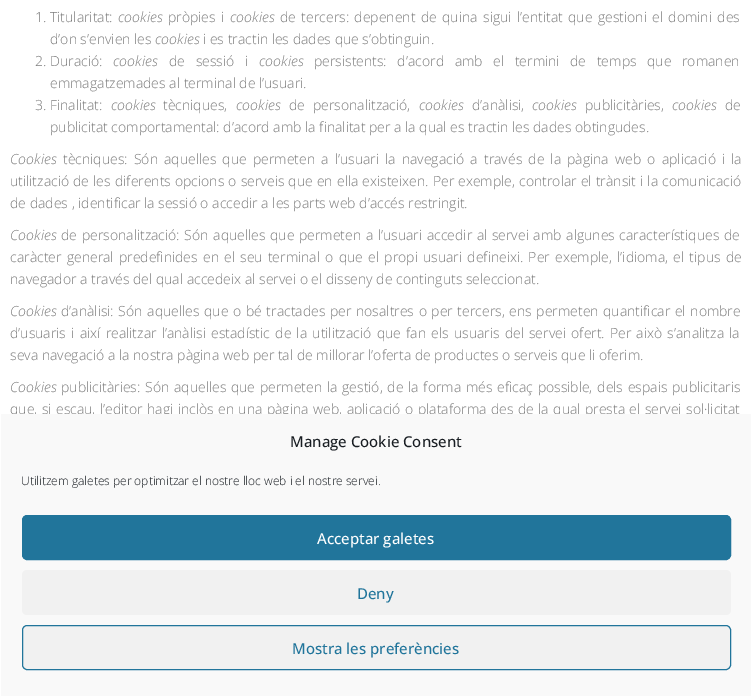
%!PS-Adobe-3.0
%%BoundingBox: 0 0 751 696
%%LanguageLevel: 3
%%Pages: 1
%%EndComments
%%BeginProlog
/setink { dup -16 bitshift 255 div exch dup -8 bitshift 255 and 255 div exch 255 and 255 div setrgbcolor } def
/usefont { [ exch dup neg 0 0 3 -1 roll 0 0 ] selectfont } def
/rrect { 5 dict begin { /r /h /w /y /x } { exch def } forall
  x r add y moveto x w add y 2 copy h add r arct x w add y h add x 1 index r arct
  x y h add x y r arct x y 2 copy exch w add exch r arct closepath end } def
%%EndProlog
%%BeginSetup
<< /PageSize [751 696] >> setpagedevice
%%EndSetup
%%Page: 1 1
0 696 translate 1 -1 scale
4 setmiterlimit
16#FFFFFF setink
0 0 751 696 rectfill
/OpenSans-Light 14 usefont
16#7C7C7C setink
35 22 moveto (1. Titularitat:) show
/OpenSans-LightItalic 14 usefont
118 22 moveto (cookies) show
/OpenSans-Light 14 usefont
168 22 moveto 2 0 32 (pròpies i) widthshow
/OpenSans-LightItalic 14 usefont
230 22 moveto (cookies) show
/OpenSans-Light 14 usefont
280 22 moveto 1.8 0 32 (de tercers: depenent de quina sigui l’entitat que gestioni el domini des) widthshow
50 44 moveto (d’on s’envien les) show
/OpenSans-LightItalic 14 usefont
155 44 moveto (cookies) show
/OpenSans-Light 14 usefont
203 44 moveto (i es tractin les dades que s’obtinguin.) show
35 66 moveto (2. Duració:) show
/OpenSans-LightItalic 14 usefont
113 66 moveto (cookies) show
/OpenSans-Light 14 usefont
169 66 moveto 7 0 32 (de sessió i) widthshow
/OpenSans-LightItalic 14 usefont
259 66 moveto (cookies) show
/OpenSans-Light 14 usefont
314 66 moveto 7 0 32 (persistents: d’acord amb el termini de temps que romanen) widthshow
50 88 moveto (emmagatzemades al terminal de l’usuari.) show
35 110 moveto (3. Finalitat:) show
/OpenSans-LightItalic 14 usefont
111 110 moveto (cookies) show
/OpenSans-Light 14 usefont
163 110 moveto (tècniques,) show
/OpenSans-LightItalic 14 usefont
236 110 moveto (cookies) show
/OpenSans-Light 14 usefont
289 110 moveto 4 0 32 (de personalització,) widthshow
/OpenSans-LightItalic 14 usefont
419 110 moveto (cookies) show
/OpenSans-Light 14 usefont
472 110 moveto (d’anàlisi,) show
/OpenSans-LightItalic 14 usefont
532 110 moveto (cookies) show
/OpenSans-Light 14 usefont
585 110 moveto (publicitàries,) show
/OpenSans-LightItalic 14 usefont
672 110 moveto (cookies) show
/OpenSans-Light 14 usefont
725 110 moveto (de) show
50 132 moveto (publicitat comportamental: d’acord amb la finalitat per a la qual es tractin les dades obtingudes.) show
/OpenSans-LightItalic 14 usefont
10 164 moveto (Cookies) show
/OpenSans-Light 14 usefont
63 164 moveto 2.5 0 32 (tècniques: Són aquelles que permeten a l’usuari la navegació a través de la pàgina web o aplicació i la) widthshow
10 186 moveto 0.5 0 32 (utilització de les diferents opcions o serveis que en ella existeixen. Per exemple, controlar el trànsit i la comunicació) widthshow
10 208 moveto (de dades , identificar la sessió o accedir a les parts web d’accés restringit.) show
/OpenSans-LightItalic 14 usefont
10 240 moveto (Cookies) show
/OpenSans-Light 14 usefont
61 240 moveto 1 0 32 (de personalització: Són aquelles que permeten a l’usuari accedir al servei amb algunes característiques de) widthshow
10 262 moveto 1.6 0 32 (caràcter general predefinides en el seu terminal o que el propi usuari defineixi. Per exemple, l’idioma, el tipus de) widthshow
10 284 moveto (navegador a través del qual accedeix al servei o el disseny de continguts seleccionat.) show
/OpenSans-LightItalic 14 usefont
10 316 moveto (Cookies) show
/OpenSans-Light 14 usefont
61 316 moveto 1 0 32 (d’anàlisi: Són aquelles que o bé tractades per nosaltres o per tercers, ens permeten quantificar el nombre) widthshow
10 338 moveto 1.6 0 32 (d’usuaris i així realitzar l’anàlisi estadístic de la utilització que fan els usuaris del servei ofert. Per això s’analitza la) widthshow
10 360 moveto (seva navegació a la nostra pàgina web per tal de millorar l’oferta de productes o serveis que li oferim.) show
/OpenSans-LightItalic 14 usefont
10 392 moveto (Cookies) show
/OpenSans-Light 14 usefont
61 392 moveto 1.1 0 32 (publicitàries: Són aquelles que permeten la gestió, de la forma més eficaç possible, dels espais publicitaris) widthshow
10 414 moveto 0.8 0 32 (que, si escau, l’editor hagi inclòs en una pàgina web, aplicació o plataforma des de la qual presta el servei sol·licitat) widthshow
16#F9F9F9 setink
1 414 750 282 rectfill
/OpenSans-Medium 15 usefont
16#191E23 setink
290 447 moveto (Manage Cookie Consent) show
/OpenSans-Light 12 usefont
21 485 moveto (Utilitzem galetes per optimitzar el nostre lloc web i el nostre servei.) show
16#21759B setink
22.5 515.5 708 44 4.5 rrect gsave fill grestore
stroke
/OpenSans-Medium 15 usefont
16#FFFFFF setink
317 544 moveto (Acceptar galetes) show
16#F1F1F1 setink
22 570 709 45 5 rrect fill
16#21759B setink
357 599 moveto (Deny) show
16#F1F1F1 setink
22.5 625.5 708 44 4.5 rrect gsave fill grestore
16#21759B setink
stroke
292 654 moveto (Mostra les preferències) show
showpage
%%EOF
